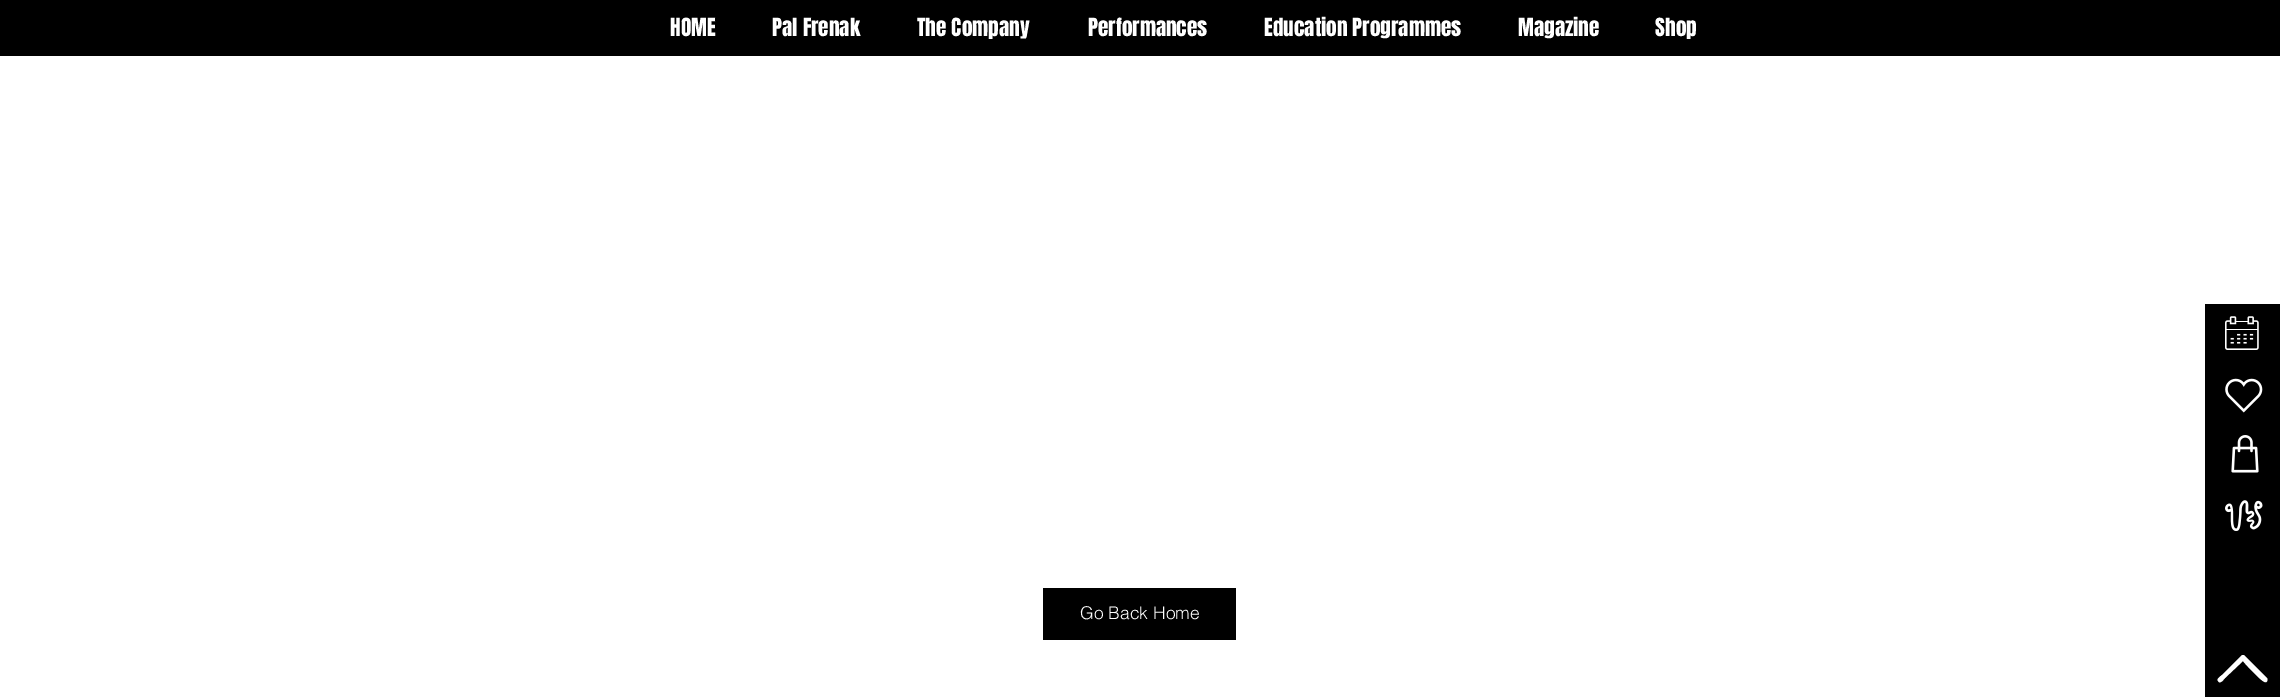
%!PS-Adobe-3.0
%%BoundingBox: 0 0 2280 697
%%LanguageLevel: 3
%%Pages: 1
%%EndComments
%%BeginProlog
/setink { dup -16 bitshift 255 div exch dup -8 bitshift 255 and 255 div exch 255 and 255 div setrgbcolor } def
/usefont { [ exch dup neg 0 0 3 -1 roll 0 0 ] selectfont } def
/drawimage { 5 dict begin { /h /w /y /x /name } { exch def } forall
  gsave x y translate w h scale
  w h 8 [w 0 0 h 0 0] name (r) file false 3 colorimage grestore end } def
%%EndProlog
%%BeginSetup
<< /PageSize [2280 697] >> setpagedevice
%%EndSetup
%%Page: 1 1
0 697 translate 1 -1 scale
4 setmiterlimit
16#FFFFFF setink
0 0 2280 697 rectfill
16#000000 setink
0 0 2280 56 rectfill
/Anton-Regular 21.25 usefont
16#FFFFFF setink
[
    [(HOME) 670 36]
    [(Pal Frenak) 772 36]
    [(The Company) 917 36]
    [(Performances) 1088 36]
    [(Education Programmes) 1264 36]
    [(Magazine) 1518 36]
    [(Shop) 1655 36]
] { aload pop moveto show } forall
16#000000 setink
1043 588 193 52 rectfill
/helvetica-Light 17.5 usefont
16#FFFFFF setink
1080 619 moveto (Go Back Home) show
16#000000 setink
2205 304 75 393 rectfill
(img1.raw) 2225 316 34 34 drawimage
(img2.raw) 2225 378 38 35 drawimage
(img3.raw) 2231 435 28 38 drawimage
(img4.raw) 2225 500 38 31 drawimage
16#FFFFFF setink
2265 682 moveto 2263 683 2245 664 2243 661 curveto 2225 678 lineto 2224 679 2220 685 2218 681 curveto 2216 679 2221 676 2222 675 curveto 2242 655 lineto 2244 655 lineto 2267 678 lineto 2268 680 2267 683 2265 682 curveto closepath fill
showpage
%%EOF
